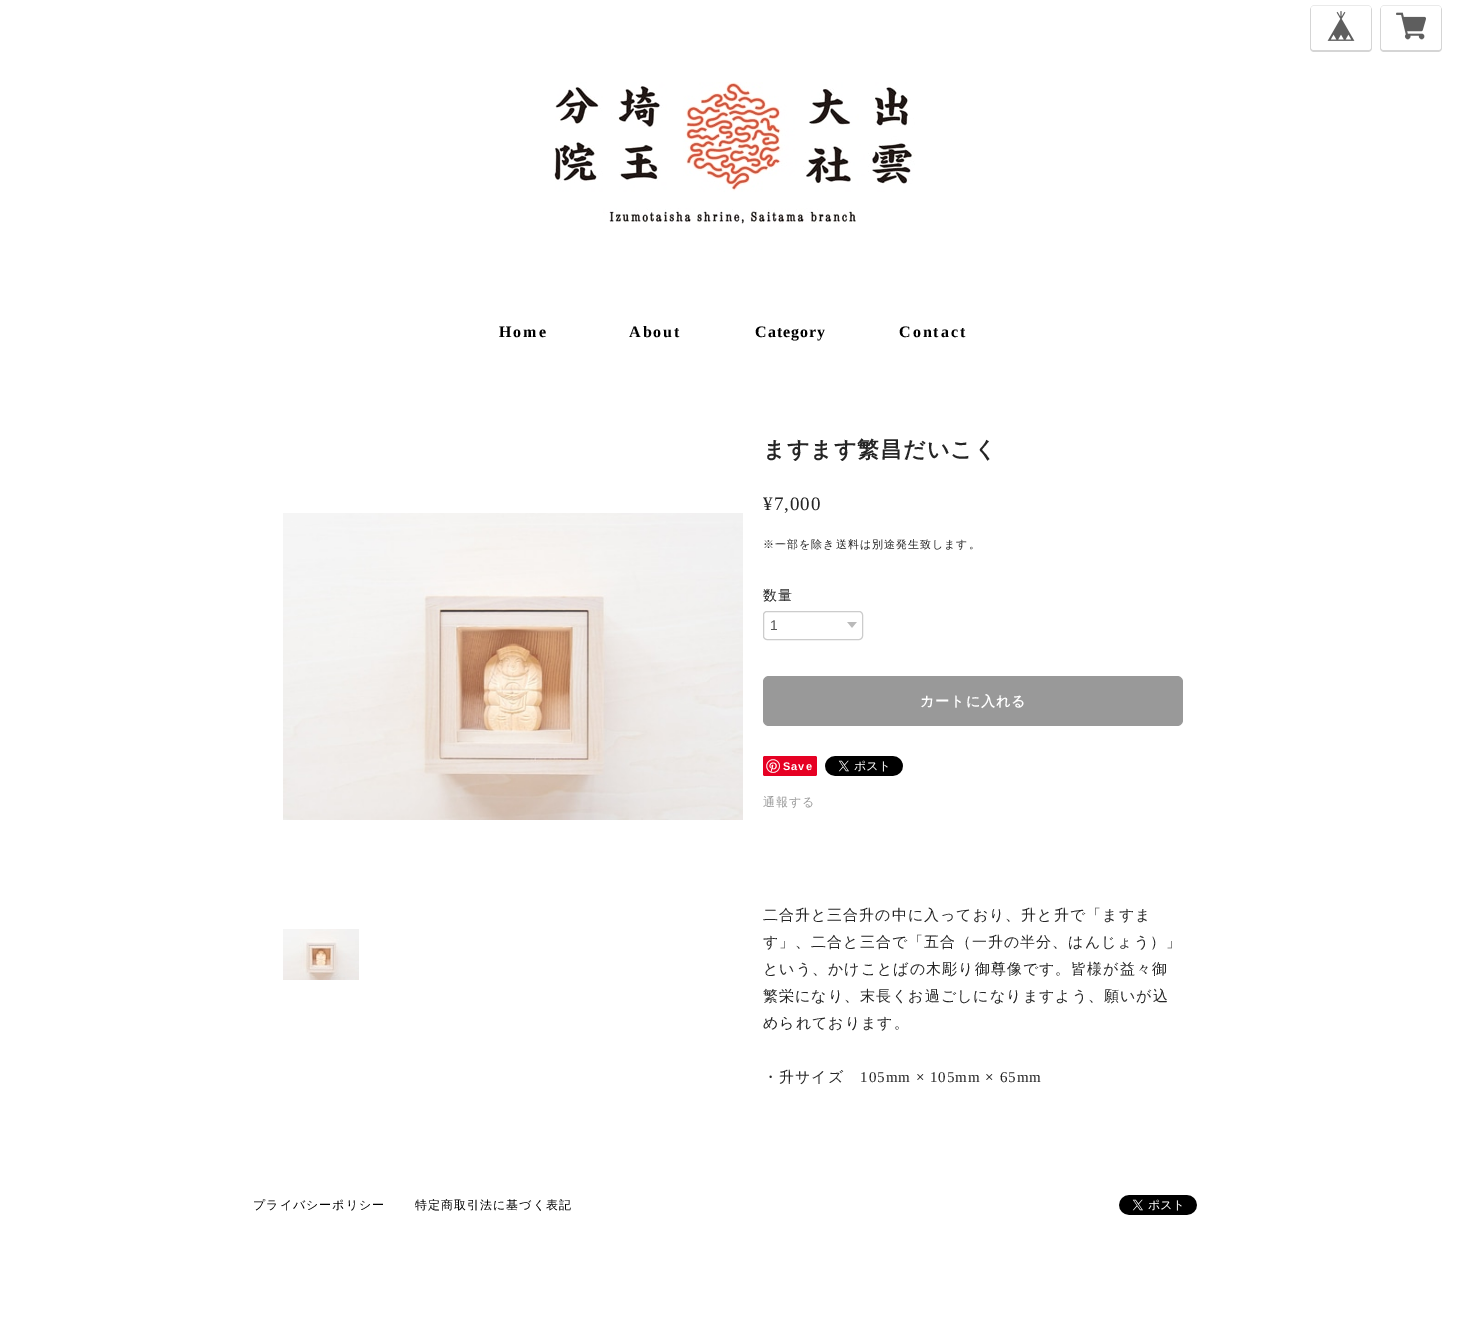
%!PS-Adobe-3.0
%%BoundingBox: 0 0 1466 1319
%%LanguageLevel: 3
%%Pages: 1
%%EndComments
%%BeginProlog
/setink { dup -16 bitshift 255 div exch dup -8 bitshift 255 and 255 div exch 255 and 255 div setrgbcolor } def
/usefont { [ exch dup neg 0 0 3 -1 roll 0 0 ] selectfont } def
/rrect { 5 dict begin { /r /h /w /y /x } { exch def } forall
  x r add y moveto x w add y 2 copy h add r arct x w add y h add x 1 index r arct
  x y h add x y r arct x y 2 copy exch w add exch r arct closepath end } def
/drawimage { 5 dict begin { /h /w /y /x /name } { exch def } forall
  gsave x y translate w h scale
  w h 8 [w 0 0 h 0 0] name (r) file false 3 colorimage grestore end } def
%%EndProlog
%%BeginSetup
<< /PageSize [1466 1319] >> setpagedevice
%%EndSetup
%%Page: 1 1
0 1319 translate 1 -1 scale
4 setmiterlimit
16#FFFFFF setink
0 0 1466 1319 rectfill
16#EAEAEA setink
1314 5 moveto 1312 5 1311 7 1311 9 curveto 1311 7 1312 6 1314 6 curveto 1368 6 lineto 1370 6 1371 7 1371 9 curveto 1371 7 1370 5 1368 5 curveto closepath fill
16#D5D5D5 setink
1314 6 moveto 1312 6 1310 8 1310 10 curveto 1310 48 lineto 1310 50 1312 52 1314 52 curveto 1368 52 lineto 1370 52 1372 50 1372 48 curveto 1372 10 lineto 1372 8 1370 6 1368 6 curveto 1370 6 1371 7 1371 9 curveto 1371 47 lineto 1371 49 1370 50 1368 50 curveto 1314 50 lineto 1312 50 1311 49 1311 47 curveto 1311 9 lineto 1311 7 1312 6 1314 6 curveto closepath fill
16#FFFFFF setink
1311 6 60 44 3 rrect fill
(img1.raw) 1327 11 28 30 drawimage
16#EAEAEA setink
1384 5 moveto 1382 5 1381 7 1381 9 curveto 1381 7 1382 6 1384 6 curveto 1438 6 lineto 1440 6 1441 7 1441 9 curveto 1441 7 1440 5 1438 5 curveto closepath fill
16#D5D5D5 setink
1384 6 moveto 1382 6 1380 8 1380 10 curveto 1380 48 lineto 1380 50 1382 52 1384 52 curveto 1438 52 lineto 1440 52 1442 50 1442 48 curveto 1442 10 lineto 1442 8 1440 6 1438 6 curveto 1440 6 1441 7 1441 9 curveto 1441 47 lineto 1441 49 1440 50 1438 50 curveto 1384 50 lineto 1382 50 1381 49 1381 47 curveto 1381 9 lineto 1381 7 1382 6 1384 6 curveto closepath fill
16#FFFFFF setink
1381 6 60 44 3 rrect fill
(img2.raw) 1396 12 30 28 drawimage
(img3.raw) 553 82 362 142 drawimage
/LiberationSerif-Bold 16 usefont
16#000000 setink
499 337 moveto 2 0 (Home) ashow
629 337 moveto 2 0 (About) ashow
755 337 moveto 1 0 (Category) ashow
899 337 moveto 2 0 (Contact) ashow
(img4.raw) 283 513 460 307 drawimage
(img5.raw) 283 929 76 51 drawimage
/WenQuanYiZenHei-Bold 22 usefont
16#252525 setink
763 457 moveto 1 0 (ますます繁昌だいこく) ashow
/LiberationSerif-Regular 19 usefont
763 510 moveto 1 0 (¥7,000) ashow
/WenQuanYiZenHei-Medium 11 usefont
763 548 moveto 1 0 (※一部を除き送料は別途発生致します。) ashow
/WenQuanYiZenHei-Medium 14 usefont
763 600 moveto 1 0 (数量) ashow
(img6.raw) 847 622 10 6 drawimage
16#CCCCCC setink
763.5 611.5 99 28 3.5 rrect stroke
/LiberationSans-Regular 14 usefont
16#555555 setink
770 630 moveto (1) show
16#999999 setink
763 676 420 50 6 rrect fill
/WenQuanYiZenHei-Bold 14 usefont
16#FFFFFF setink
920 706 moveto 1 0 (カートに入れる) ashow
16#E60023 setink
763 756 54 20 2 rrect fill
(img7.raw) 766 759 14 14 drawimage
/LiberationSans-Bold 11 usefont
16#FFFFFF setink
783 770 moveto 1 0 (Save) ashow
(img8.raw) 825 756 78 20 drawimage
/WenQuanYiZenHei-Medium 12 usefont
16#999999 setink
763 806 moveto 1 0 (通報する) ashow
/WenQuanYiZenHei-Medium 15 usefont
16#252525 setink
763 920 moveto 1 0 (二合升と三合升の中に入っており、升と升で「ますま) ashow
763 947 moveto 1 0 (す」、二合と三合で「五合（一升の半分、はんじょう）」) ashow
763 974 moveto 1 0 (という、かけことばの木彫り御尊像です。皆様が益々御) ashow
763 1001 moveto 1 0 (繁栄になり、末長くお過ごしになりますよう、願いが込) ashow
763 1028 moveto 1 0 (められております。) ashow
763 1082 moveto 1 0 (・升サイズ) ashow
/LiberationSerif-Regular 15 usefont
860 1082 moveto 1 0 (105mm × 105mm × 65mm) ashow
/WenQuanYiZenHei-Medium 12 usefont
16#000000 setink
253 1209 moveto 1 0 (プライバシーポリシー) ashow
415 1209 moveto 1 0 (特定商取引法に基づく表記) ashow
(img9.raw) 1119 1195 78 20 drawimage
showpage
%%EOF
